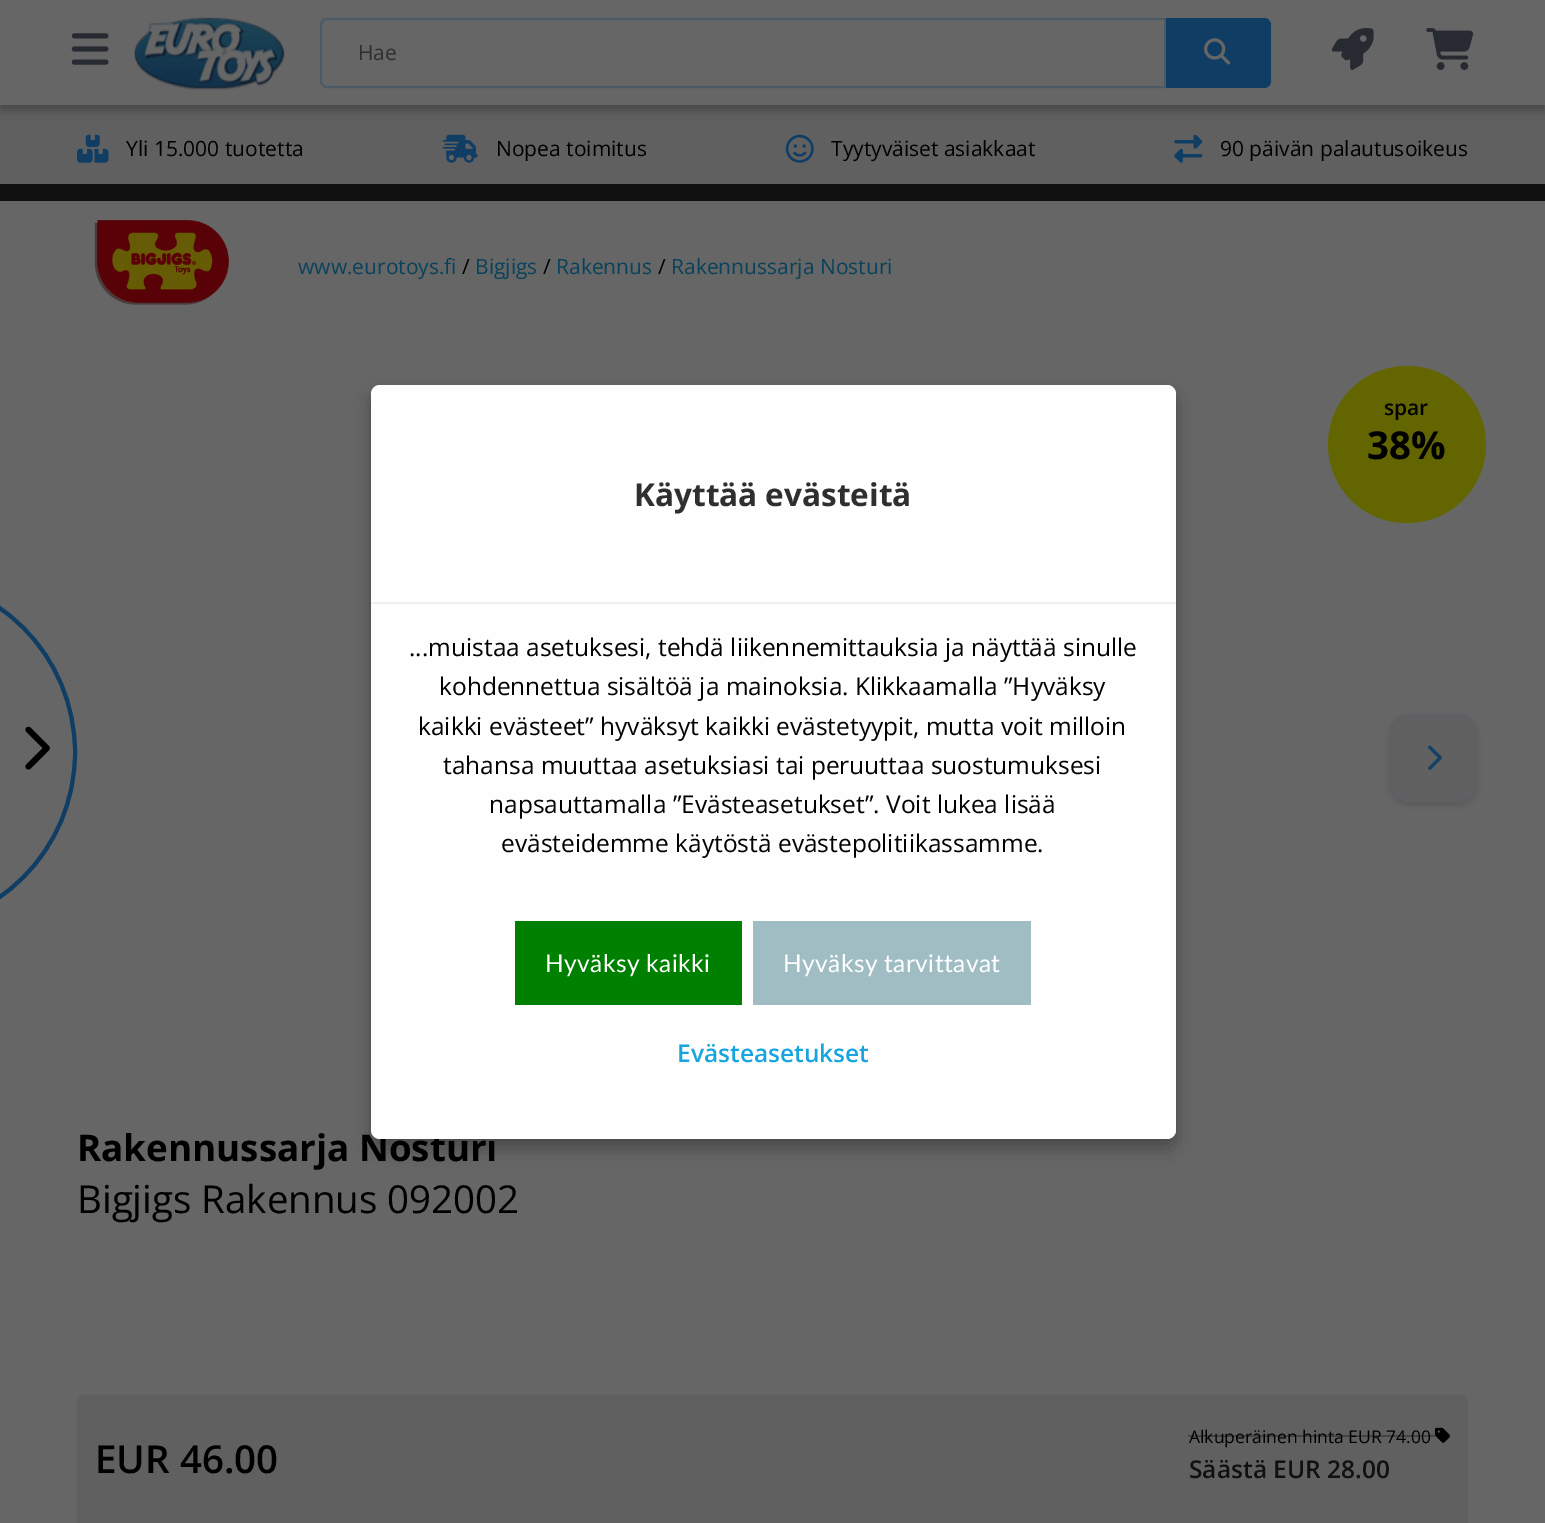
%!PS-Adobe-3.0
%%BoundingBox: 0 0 1545 1523
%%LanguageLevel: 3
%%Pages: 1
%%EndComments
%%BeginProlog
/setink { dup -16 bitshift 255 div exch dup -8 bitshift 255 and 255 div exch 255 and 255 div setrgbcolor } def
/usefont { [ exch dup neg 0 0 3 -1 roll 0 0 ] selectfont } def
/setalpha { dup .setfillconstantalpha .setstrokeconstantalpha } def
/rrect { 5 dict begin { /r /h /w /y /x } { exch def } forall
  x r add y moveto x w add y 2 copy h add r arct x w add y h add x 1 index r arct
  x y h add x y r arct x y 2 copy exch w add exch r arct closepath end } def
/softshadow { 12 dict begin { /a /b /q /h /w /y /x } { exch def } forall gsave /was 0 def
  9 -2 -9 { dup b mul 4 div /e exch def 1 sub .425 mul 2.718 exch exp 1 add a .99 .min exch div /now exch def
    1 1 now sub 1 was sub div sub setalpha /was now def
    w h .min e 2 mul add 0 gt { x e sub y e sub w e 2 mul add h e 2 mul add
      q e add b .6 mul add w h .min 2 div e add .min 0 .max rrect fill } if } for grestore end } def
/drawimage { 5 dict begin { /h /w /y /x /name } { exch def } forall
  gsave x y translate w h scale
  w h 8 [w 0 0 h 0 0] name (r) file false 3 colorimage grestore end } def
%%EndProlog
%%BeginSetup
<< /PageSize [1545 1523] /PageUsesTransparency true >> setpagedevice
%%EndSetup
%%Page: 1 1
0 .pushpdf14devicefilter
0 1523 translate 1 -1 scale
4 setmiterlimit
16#111111 setink
0 0 1545 1523 rectfill
16#606060 setink
0 105 1545 79 rectfill
16#000000 setink
0 5 1545 105 0 5 0.25 softshadow
16#666666 setink
0 0 1545 105 rectfill
(img1.raw) 71 33 38 32 drawimage
(img2.raw) 134 17 151 73 drawimage
16#4B5A65 setink
2 setlinewidth
327 19 moveto 1165 19 lineto 1165 87 lineto 327 87 lineto 323.5 87 321 84.5 321 81 curveto 321 25 lineto 321 21.5 323.5 19 327 19 curveto closepath stroke
/OpenSans-Regular 21 usefont
16#2F2F2F setink
358 60 moveto (Hae) show
16#0F3D64 setink
1166 18 moveto 1264 18 lineto 1268 18 1271 21 1271 25 curveto 1271 81 lineto 1271 85 1268 88 1264 88 curveto 1166 88 lineto closepath fill
(img3.raw) 1204 38 27 27 drawimage
(img4.raw) 1331 28 43 42 drawimage
(img5.raw) 1426 28 48 42 drawimage
(img6.raw) 77 134 32 29 drawimage
16#000000 setink
126 156 moveto (Yli 15.000 tuotetta) show
(img7.raw) 442 134 36 29 drawimage
496 156 moveto (Nopea toimitus) show
(img8.raw) 785 134 29 29 drawimage
831 156 moveto (Tyytyväiset asiakkaat) show
(img9.raw) 1174 134 29 29 drawimage
1220 156 moveto (90 päivän palautusoikeus) show
16#666666 setink
0 201 1545 1322 rectfill
16#0F3D64 setink
4 setlinewidth
-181 576 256 353 176.5 rrect stroke
(img10.raw) 25 726 25 44 drawimage
(img11.raw) 94 220 135 85 drawimage
16#09425A setink
298 274 moveto (www.eurotoys.fi) show
16#000000 setink
462 274 moveto (/) show
16#09425A setink
475 274 moveto (Bigjigs) show
16#000000 setink
543 274 moveto (/) show
16#09425A setink
556 274 moveto (Rakennus) show
16#000000 setink
658 274 moveto (/) show
16#09425A setink
671 274 moveto (Rakennussarja Nosturi) show
16#636600 setink
1328 366 158 157 78.5 rrect fill
/OpenSans-SemiBold 21 usefont
16#000000 setink
1384 415 moveto (spar) show
/OpenSans-Bold 38.5 usefont
1367 459 moveto (38%) show
16#0A0A0A setink
1390 718 87 87 18 3.5 0.15 softshadow
16#616161 setink
1392 716 83 84 16 rrect gsave fill grestore
16#5F6063 setink
stroke
(img12.raw) 1428 745 14 25 drawimage
/OpenSans-Bold 36.75 usefont
16#000000 setink
77 1161 moveto (Rakennussarja Nosturi) show
/OpenSans-Regular 38.5 usefont
77 1213 moveto (Bigjigs Rakennus 092002) show
16#606060 setink
77 1395 1391 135 7 rrect fill
/OpenSans-SemiBold 38.5 usefont
16#000000 setink
95 1473 moveto (EUR 46.00) show
/OpenSans-Regular 17.5 usefont
1189 1443 moveto (Alkuperäinen hinta EUR 74.00) show
0.3 setalpha
1188 1435 247 2 rectfill
1 setalpha
(img13.raw) 1435 1427 15 16 drawimage
/OpenSans-SemiBold 24.5 usefont
16#111111 setink
1189 1478 moveto (Säästä EUR 28.00) show
16#000000 setink
371 394 805 754 9 9 0.3 softshadow
16#FEFEFE setink
371 385 805 754 9 rrect fill
16#EEEEEE setink
371 602 805 2 rectfill
/OpenSans-Bold 31.5 usefont
16#2F2F2F setink
634 506 moveto (Käyttää evästeitä) show
/OpenSans-Regular 24.5 usefont
16#000000 setink
[
    [(...muistaa asetuksesi, tehdä liikennemittauksia ja näyttää sinulle) 409 656]
    [(kohdennettua sisältöä ja mainoksia. Klikkaamalla ”Hyväksy) 439 695]
    [(kaikki evästeet” hyväksyt kaikki evästetyypit, mutta voit milloin) 418 735]
    [(tahansa muuttaa asetuksiasi tai peruuttaa suostumuksesi) 443 774]
    [(napsauttamalla ”Evästeasetukset”. Voit lukea lisää) 489 813]
    [(evästeidemme käytöstä evästepolitiikassamme.) 501 852]
] { aload pop moveto show } forall
16#008000 setink
515 921 227 84 rectfill
/Lato-Regular 24.5 usefont
16#FFFFFF setink
545 972 moveto 0.4 0 (Hyväksy kaikki) ashow
16#9FBDC3 setink
753 921 278 84 rectfill
16#FFFFFF setink
783 972 moveto 0.4 0 (Hyväksy tarvittavat) ashow
/OpenSans-SemiBold 24.5 usefont
16#16A5E0 setink
677 1062 moveto (Evästeasetukset) show
.poppdf14devicefilter showpage
%%EOF
